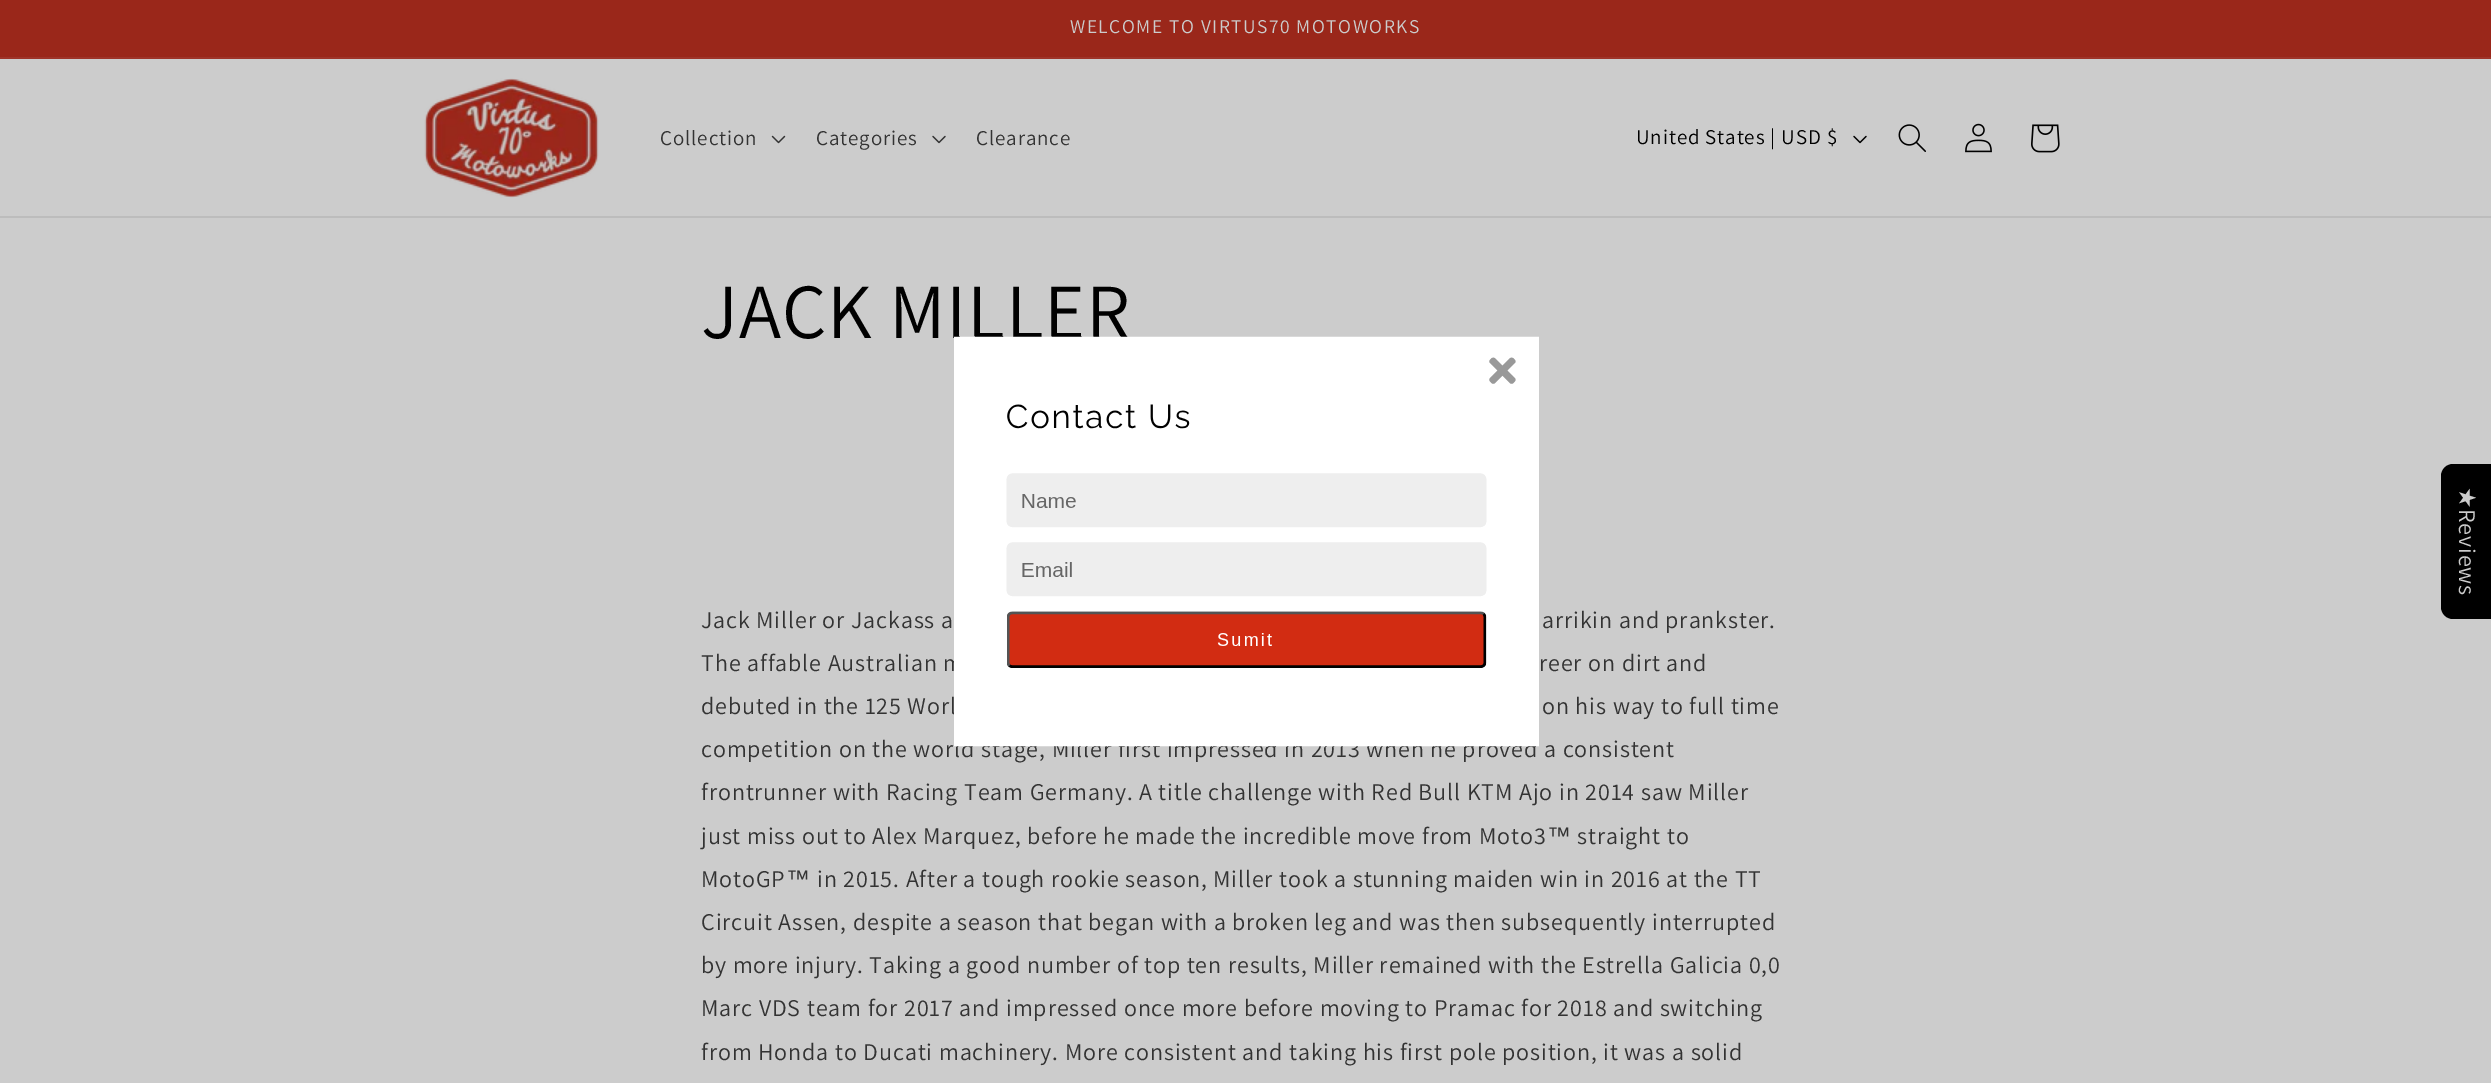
%!PS-Adobe-3.0
%%BoundingBox: 0 0 2491 1083
%%LanguageLevel: 3
%%Pages: 1
%%EndComments
%%BeginProlog
/setink { dup -16 bitshift 255 div exch dup -8 bitshift 255 and 255 div exch 255 and 255 div setrgbcolor } def
/usefont { [ exch dup neg 0 0 3 -1 roll 0 0 ] selectfont } def
/drawimage { 5 dict begin { /h /w /y /x /name } { exch def } forall
  gsave x y translate w h scale
  w h 8 [w 0 0 h 0 0] name (r) file false 3 colorimage grestore end } def
%%EndProlog
%%BeginSetup
<< /PageSize [2491 1083] >> setpagedevice
%%EndSetup
%%Page: 1 1
0 1083 translate 1 -1 scale
4 setmiterlimit
16#CCCCCC setink
0 0 2491 1083 rectfill
16#9A271A setink
0 0 2491 57 rectfill
16#9E3429 setink
0 57 2491 2 rectfill
/Assistant-Regular 19.5 usefont
16#CCCCCC setink
1070 33 moveto 1.5 0 (WELCOME TO VIRTUS70 MOTOWORKS) ashow
16#BCBCBC setink
0 216 2491 2 rectfill
(img1.raw) 424 78 175 120 drawimage
/Assistant-Regular 21 usefont
16#333333 setink
660 145 moveto 0.9 0 (Collection) ashow
(img2.raw) 771 135 15 9 drawimage
816 145 moveto 0.9 0 (Categories) ashow
(img3.raw) 932 135 14 9 drawimage
976 145 moveto 0.9 0 (Clearance) ashow
16#000000 setink
1636 144 moveto 0.9 0 (United States | USD $) ashow
(img4.raw) 1853 135 14 9 drawimage
(img5.raw) 1898 124 28 28 drawimage
(img6.raw) 1965 123 27 30 drawimage
(img7.raw) 2031 124 29 29 drawimage
/Assistant-Regular 78 usefont
701 338 moveto 0.9 0 (JACK MILLER) ashow
/Assistant-Regular 24 usefont
16#333333 setink
701 628 moveto 0.9 0 (Jack Miller or Jackass a) ashow
1542 628 moveto 0.9 0 (arrikin and prankster.) ashow
701 671 moveto 0.9 0 (The affable Australian m) ashow
1539 671 moveto 0.9 0 (reer on dirt and) ashow
701 714 moveto 0.9 0 (debuted in the 125 Worl) ashow
1542 714 moveto 0.9 0 (on his way to full time) ashow
701 757 moveto 0.9 0 (competition on the world stage, Miller first impressed in 2013 when he proved a consistent) ashow
701 800 moveto 0.9 0 (frontrunner with Racing Team Germany. A title challenge with Red Bull KTM Ajo in 2014 saw Miller) ashow
701 844 moveto 0.9 0 (just miss out to Alex Marquez, before he made the incredible move from Moto3) ashow
/LiberationSans-Regular 24 usefont
1547 844 moveto 0.9 0 (™) ashow
/Assistant-Regular 24 usefont
1577 844 moveto 0.9 0 (straight to) ashow
701 887 moveto 0.9 0 (MotoGP) ashow
/LiberationSans-Regular 24 usefont
786 887 moveto 0.9 0 (™) ashow
/Assistant-Regular 24 usefont
817 887 moveto 0.9 0 (in 2015. After a tough rookie season, Miller took a stunning maiden win in 2016 at the TT) ashow
701 930 moveto 0.9 0 (Circuit Assen, despite a season that began with a broken leg and was then subsequently interrupted) ashow
701 973 moveto 0.9 0 (by more injury. Taking a good number of top ten results, Miller remained with the Estrella Galicia 0,0) ashow
701 1016 moveto 0.9 0 (Marc VDS team for 2017 and impressed once more before moving to Pramac for 2018 and switching) ashow
701 1060 moveto 0.9 0 (from Honda to Ducati machinery. More consistent and taking his first pole position, it was a solid) ashow
(img8.raw) 954 336 585 411 drawimage
16#000000 setink
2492 464 moveto 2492 619 lineto 2453 619 lineto 2446 619 2441 613 2441 607 curveto 2441 476 lineto 2441 470 2446 464 2453 464 curveto closepath fill
/DejaVuSans-Regular 24 usefont
16#CCCCCC setink
gsave 2459 487 translate 90 rotate 0 0 moveto 0.9 0 (★) ashow grestore
/Assistant-Regular 24 usefont
gsave 2459 509 translate 90 rotate 0 0 moveto 0.9 0 (Reviews) ashow grestore
showpage
%%EOF
